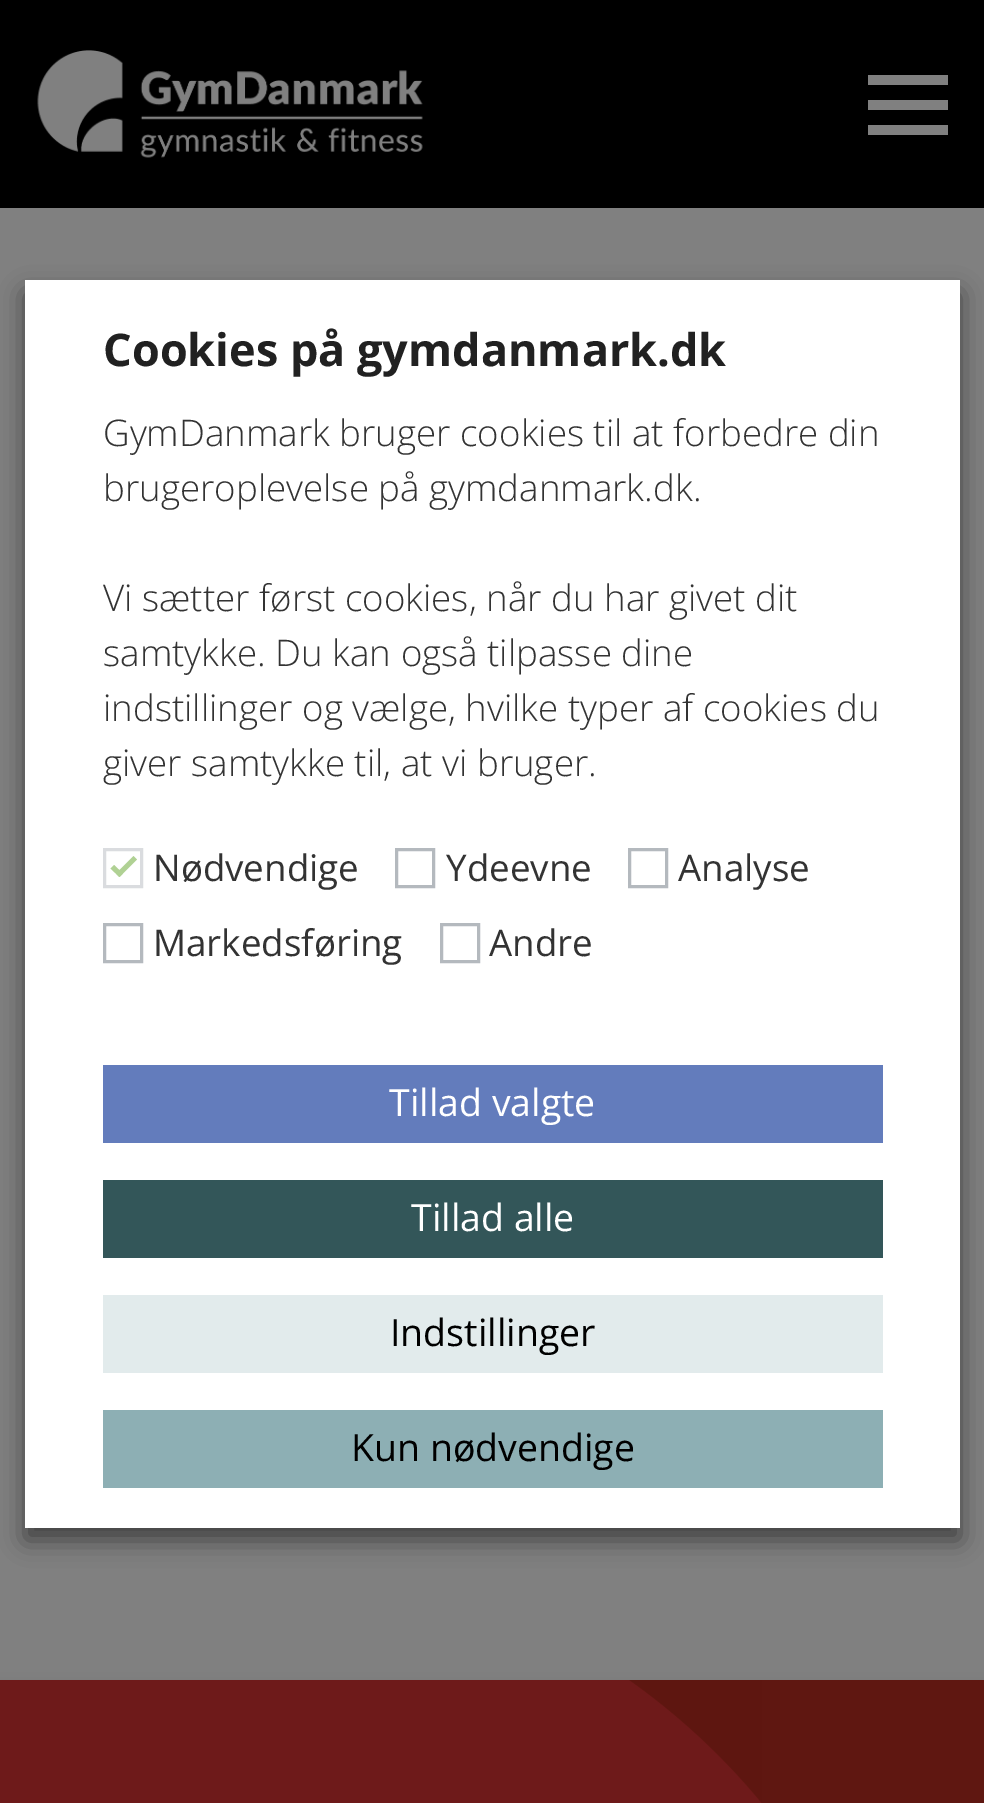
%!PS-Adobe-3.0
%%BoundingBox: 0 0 984 1803
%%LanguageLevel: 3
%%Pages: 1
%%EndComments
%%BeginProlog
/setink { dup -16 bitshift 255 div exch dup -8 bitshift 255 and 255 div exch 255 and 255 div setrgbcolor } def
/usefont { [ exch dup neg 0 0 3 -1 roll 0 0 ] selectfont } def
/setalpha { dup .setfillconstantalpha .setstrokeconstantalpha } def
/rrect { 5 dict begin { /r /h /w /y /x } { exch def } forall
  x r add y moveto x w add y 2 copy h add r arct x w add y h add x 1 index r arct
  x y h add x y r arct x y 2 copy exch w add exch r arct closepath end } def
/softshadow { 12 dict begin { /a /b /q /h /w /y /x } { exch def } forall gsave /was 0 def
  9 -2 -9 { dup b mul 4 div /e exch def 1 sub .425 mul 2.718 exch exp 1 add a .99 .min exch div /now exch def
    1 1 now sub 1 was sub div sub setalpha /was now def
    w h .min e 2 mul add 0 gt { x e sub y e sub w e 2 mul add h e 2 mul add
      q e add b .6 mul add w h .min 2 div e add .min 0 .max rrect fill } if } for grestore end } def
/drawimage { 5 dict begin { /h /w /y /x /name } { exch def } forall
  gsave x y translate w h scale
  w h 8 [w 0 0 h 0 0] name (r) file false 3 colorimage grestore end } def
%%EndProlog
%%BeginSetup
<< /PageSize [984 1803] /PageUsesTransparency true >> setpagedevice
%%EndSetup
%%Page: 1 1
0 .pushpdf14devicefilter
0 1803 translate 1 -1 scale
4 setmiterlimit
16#808080 setink
0 0 984 1803 rectfill
16#000000 setink
0 0 984 208 rectfill
(img1.raw) 37 50 386 108 drawimage
[
    [868 75 80 10 16#808080]
    [868 100 80 10 16#808080]
    [868 125 80 10 16#808080]
] { aload pop setink rectfill } forall
16#000000 setink
-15 1683 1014 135 0 5 0.1 softshadow
16#5F1711 setink
629 1680 355 123 rectfill
(img2.raw) 0 1680 762 123 drawimage
16#000000 setink
25 293 935 1247 0 12.5 0.5 softshadow
16#FFFFFF setink
25 280 935 1248 rectfill
/OpenSans-Bold 45 usefont
16#212121 setink
103 366 moveto (Cookies på gymdanmark.dk) show
/OpenSans-Light 36.7 usefont
16#333333 setink
[
    [(GymDanmark bruger cookies til at forbedre din) 103 446]
    [(brugeroplevelse på gymdanmark.dk.) 103 501]
    [(Vi sætter først cookies, når du har givet dit) 103 611]
    [(samtykke. Du kan også tilpasse dine) 103 666]
    [(indstillinger og vælge, hvilke typer af cookies du) 103 721]
    [(giver samtykke til, at vi bruger.) 103 776]
] { aload pop moveto show } forall
16#DADCDF setink
3 setlinewidth
104.5 849.5 37 37 rectstroke
16#B0D194 setink
133.5 856 moveto 137 859.5 lineto 119.5 877 lineto 116 873.5 lineto closepath fill
114 865 moveto 123 873.5 lineto 119.5 877 lineto 110.5 868.5 lineto closepath fill
/OpenSans-Regular 36.7 usefont
16#333333 setink
153 881 moveto (Nødvendige) show
16#B4B9BE setink
396.5 849.5 37 37 rectstroke
16#333333 setink
446 881 moveto (Ydeevne) show
16#B4B9BE setink
629.5 849.5 37 37 rectstroke
16#333333 setink
678 881 moveto (Analyse) show
16#B4B9BE setink
104.5 924.5 37 37 rectstroke
16#333333 setink
153 956 moveto (Markedsføring) show
16#B4B9BE setink
441.5 924.5 37 37 rectstroke
16#333333 setink
489 956 moveto (Andre) show
16#637CBC setink
103 1065 780 78 rectfill
/OpenSans-Regular 37.5 usefont
16#FFFFFF setink
389 1116 moveto (Tillad valgte) show
16#335659 setink
103 1180 780 78 rectfill
16#FFFFFF setink
411 1231 moveto (Tillad alle) show
16#E2EBEC setink
103 1295 780 78 rectfill
16#000000 setink
390 1346 moveto (Indstillinger) show
16#8DAFB4 setink
103 1410 780 78 rectfill
16#000000 setink
351 1461 moveto (Kun nødvendige) show
.poppdf14devicefilter showpage
%%EOF
